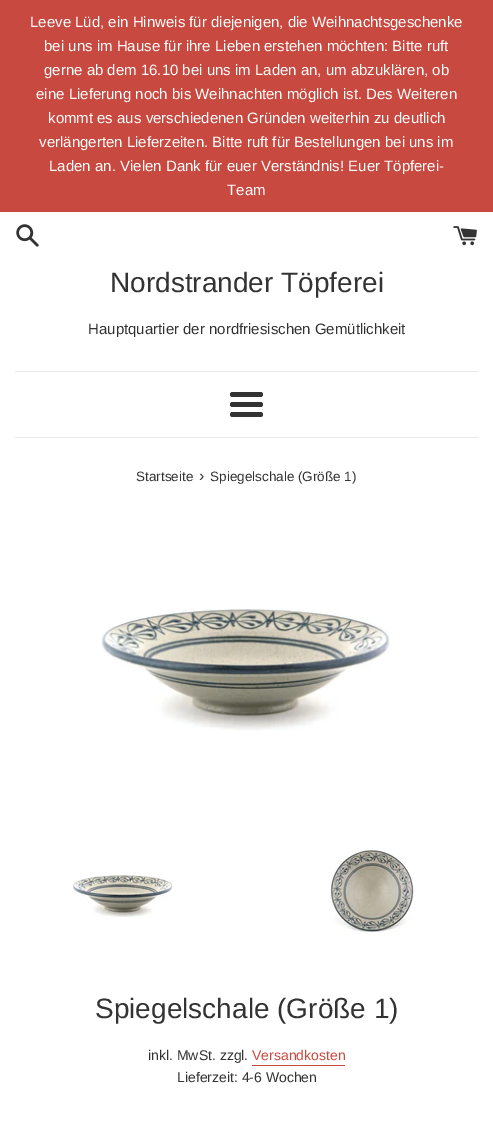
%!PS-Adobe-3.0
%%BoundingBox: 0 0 493 1125
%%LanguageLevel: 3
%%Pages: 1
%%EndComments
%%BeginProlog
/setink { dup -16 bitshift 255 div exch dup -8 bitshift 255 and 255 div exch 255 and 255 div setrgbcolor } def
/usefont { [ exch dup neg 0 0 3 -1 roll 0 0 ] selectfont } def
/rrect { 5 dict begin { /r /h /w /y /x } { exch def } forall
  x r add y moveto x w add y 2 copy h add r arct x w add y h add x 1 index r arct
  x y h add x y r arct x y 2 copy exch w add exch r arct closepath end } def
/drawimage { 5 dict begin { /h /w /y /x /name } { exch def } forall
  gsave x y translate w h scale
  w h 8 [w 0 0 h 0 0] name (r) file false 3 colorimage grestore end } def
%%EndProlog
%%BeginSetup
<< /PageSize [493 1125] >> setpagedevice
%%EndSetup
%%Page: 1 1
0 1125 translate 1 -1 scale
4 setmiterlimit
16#FFFFFF setink
0 0 493 1125 rectfill
16#C8493F setink
0 0 493 212 rectfill
/LiberationSans-Regular 15 usefont
16#FFFFFF setink
[
    [(Leeve Lüd, ein Hinweis für diejenigen, die Weihnachtsgeschenke) 30 27]
    [(bei uns im Hause für ihre Lieben erstehen möchten: Bitte ruft) 44 51]
    [(gerne ab dem 16.10 bei uns im Laden an, um abzuklären, ob) 44 75]
    [(eine Lieferung noch bis Weihnachten möglich ist. Des Weiteren) 36 99]
    [(kommt es aus verschiedenen Gründen weiterhin zu deutlich) 48 123]
    [(verlängerten Lieferzeiten. Bitte ruft für Bestellungen bei uns im) 39 147]
    [(Laden an. Vielen Dank für euer Verständnis! Euer Töpferei-) 49 171]
    [(Team) 227 195]
] { aload pop moveto show } forall
(img1.raw) 16 224 23 23 drawimage
(img2.raw) 453 226 24 20 drawimage
/LiberationSans-Regular 28 usefont
16#333333 setink
110 292 moveto (Nordstrander Töpferei) show
/LiberationSans-Regular 15 usefont
88 334 moveto (Hauptquartier der nordfriesischen Gemütlichkeit) show
16#E8E8E8 setink
15 371 463 1 rectfill
16#333333 setink
230 392 33 5 2.5 rrect fill
230 402 33 5 2.5 rrect fill
230 412 33 5 2.5 rrect fill
16#E8E8E8 setink
15 437 463 1 rectfill
/LiberationSans-Regular 13.5 usefont
16#333333 setink
136 481 moveto (Startseite) show
/LiberationSans-Regular 16 usefont
199 481 moveto (›) show
/LiberationSans-Regular 13.5 usefont
210 481 moveto (Spiegelschale \(Größe 1\)) show
(img3.raw) 101 609 289 122 drawimage
(img4.raw) 71 873 103 44 drawimage
(img5.raw) 330 850 84 83 drawimage
/LiberationSans-Regular 28 usefont
95 1018 moveto (Spiegelschale \(Größe 1\)) show
/LiberationSans-Regular 14 usefont
148 1060 moveto (inkl. MwSt. zzgl.) show
16#C8493F setink
252 1060 moveto (Versandkosten) show
252 1065 93 1 rectfill
16#333333 setink
177 1082 moveto (Lieferzeit: 4-6 Wochen) show
showpage
%%EOF
